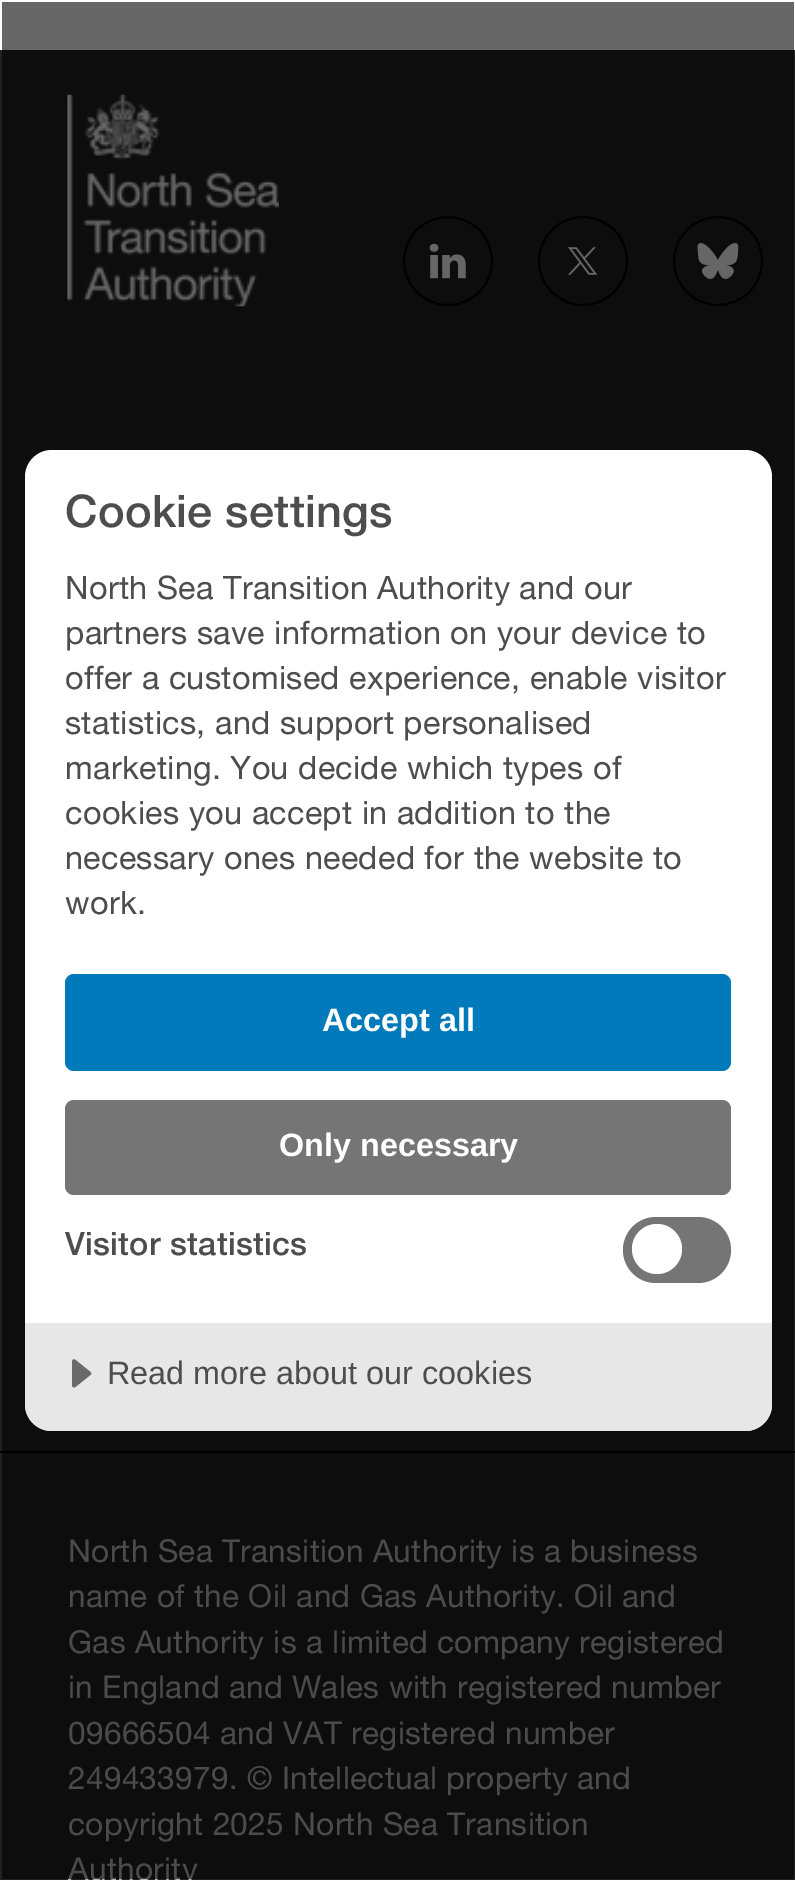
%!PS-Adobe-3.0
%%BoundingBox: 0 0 795 1880
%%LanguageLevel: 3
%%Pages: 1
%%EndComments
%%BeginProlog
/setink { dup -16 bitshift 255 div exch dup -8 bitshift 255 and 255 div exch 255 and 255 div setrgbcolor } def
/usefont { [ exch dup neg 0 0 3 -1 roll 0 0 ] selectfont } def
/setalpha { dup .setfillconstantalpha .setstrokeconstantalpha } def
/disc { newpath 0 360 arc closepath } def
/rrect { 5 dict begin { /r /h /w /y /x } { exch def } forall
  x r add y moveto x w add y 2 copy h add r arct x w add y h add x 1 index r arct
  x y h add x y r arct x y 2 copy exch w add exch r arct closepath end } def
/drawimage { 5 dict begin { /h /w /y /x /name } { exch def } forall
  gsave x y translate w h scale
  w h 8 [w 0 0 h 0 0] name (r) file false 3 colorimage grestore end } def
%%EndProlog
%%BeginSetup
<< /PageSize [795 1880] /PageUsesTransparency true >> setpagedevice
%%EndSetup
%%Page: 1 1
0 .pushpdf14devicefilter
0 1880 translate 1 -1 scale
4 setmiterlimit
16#FFFFFF setink
0 0 795 1880 rectfill
16#212121 setink
0 50 795 1830 rectfill
(img2.raw) 67 94 212 213 drawimage
16#000000 setink
2 setlinewidth
448 261 44 disc stroke
(img3.raw) 429 243 37 36 drawimage
583 261 44 disc stroke
(img4.raw) 568 247 30 28 drawimage
718 261 44 disc stroke
(img5.raw) 697 243 42 36 drawimage
0 1451 795 2 rectfill
/HelveticaNeue-Regular 31.6 usefont
16#BCBCBC setink
68 1562 moveto 0.3 0 (North Sea Transition Authority is a business) ashow
68 1607 moveto 0.3 0 (name of the Oil and Gas Authority. Oil and) ashow
68 1653 moveto 0.3 0 (Gas Authority is a limited company registered) ashow
68 1698 moveto 0.3 0 (in England and Wales with registered number) ashow
68 1744 moveto 0.3 0 (09666504 and VAT registered number) ashow
68 1789 moveto 0.3 0 (249433979. © Intellectual property and) ashow
68 1835 moveto 0.3 0 (copyright 2025 North Sea Transition) ashow
68 1880 moveto 0.3 0 (Authority) ashow
0.6 setalpha
16#000000 setink
2 2 792 1877 rectfill
1 setalpha
16#FFFFFF setink
25 450 747 981 27 rrect fill
/HelveticaNeue-Medium 45 usefont
16#4D4D4D setink
65 527 moveto 0.3 0 (Cookie settings) ashow
/HelveticaNeue-Regular 32.4 usefont
65 599 moveto 0.3 0 (North Sea Transition Authority and our) ashow
65 644 moveto 0.3 0 (partners save information on your device to) ashow
65 689 moveto 0.3 0 (offer a customised experience, enable visitor) ashow
65 734 moveto 0.3 0 (statistics, and support personalised) ashow
65 779 moveto 0.3 0 (marketing. You decide which types of) ashow
65 824 moveto 0.3 0 (cookies you accept in addition to the) ashow
65 869 moveto 0.3 0 (necessary ones needed for the website to) ashow
65 914 moveto 0.3 0 (work.) ashow
16#017ABC setink
65 974 666 97 9 rrect fill
/LiberationSans-Bold 32.4 usefont
16#FFFFFF setink
322 1031 moveto (Accept all) show
16#757575 setink
65 1100 666 95 9 rrect fill
16#FFFFFF setink
279 1156 moveto (Only necessary) show
/HelveticaNeue-Medium 32.4 usefont
16#4D4D4D setink
65 1255 moveto 0.3 0 (Visitor statistics) ashow
16#757575 setink
623 1217 108 66 33 rrect fill
16#FFFFFF setink
657 1249 25 disc fill
16#E7E7E7 setink
25 1323 moveto 772 1323 lineto 772 1404 lineto 772 1419 760 1431 745 1431 curveto 52 1431 lineto 37 1431 25 1419 25 1404 curveto closepath fill
(img1.raw) 72 1359 20 29 drawimage
/LiberationSans-Regular 32.4 usefont
16#4D4D4D setink
107 1384 moveto (Read more about our cookies) show
.poppdf14devicefilter showpage
%%EOF
